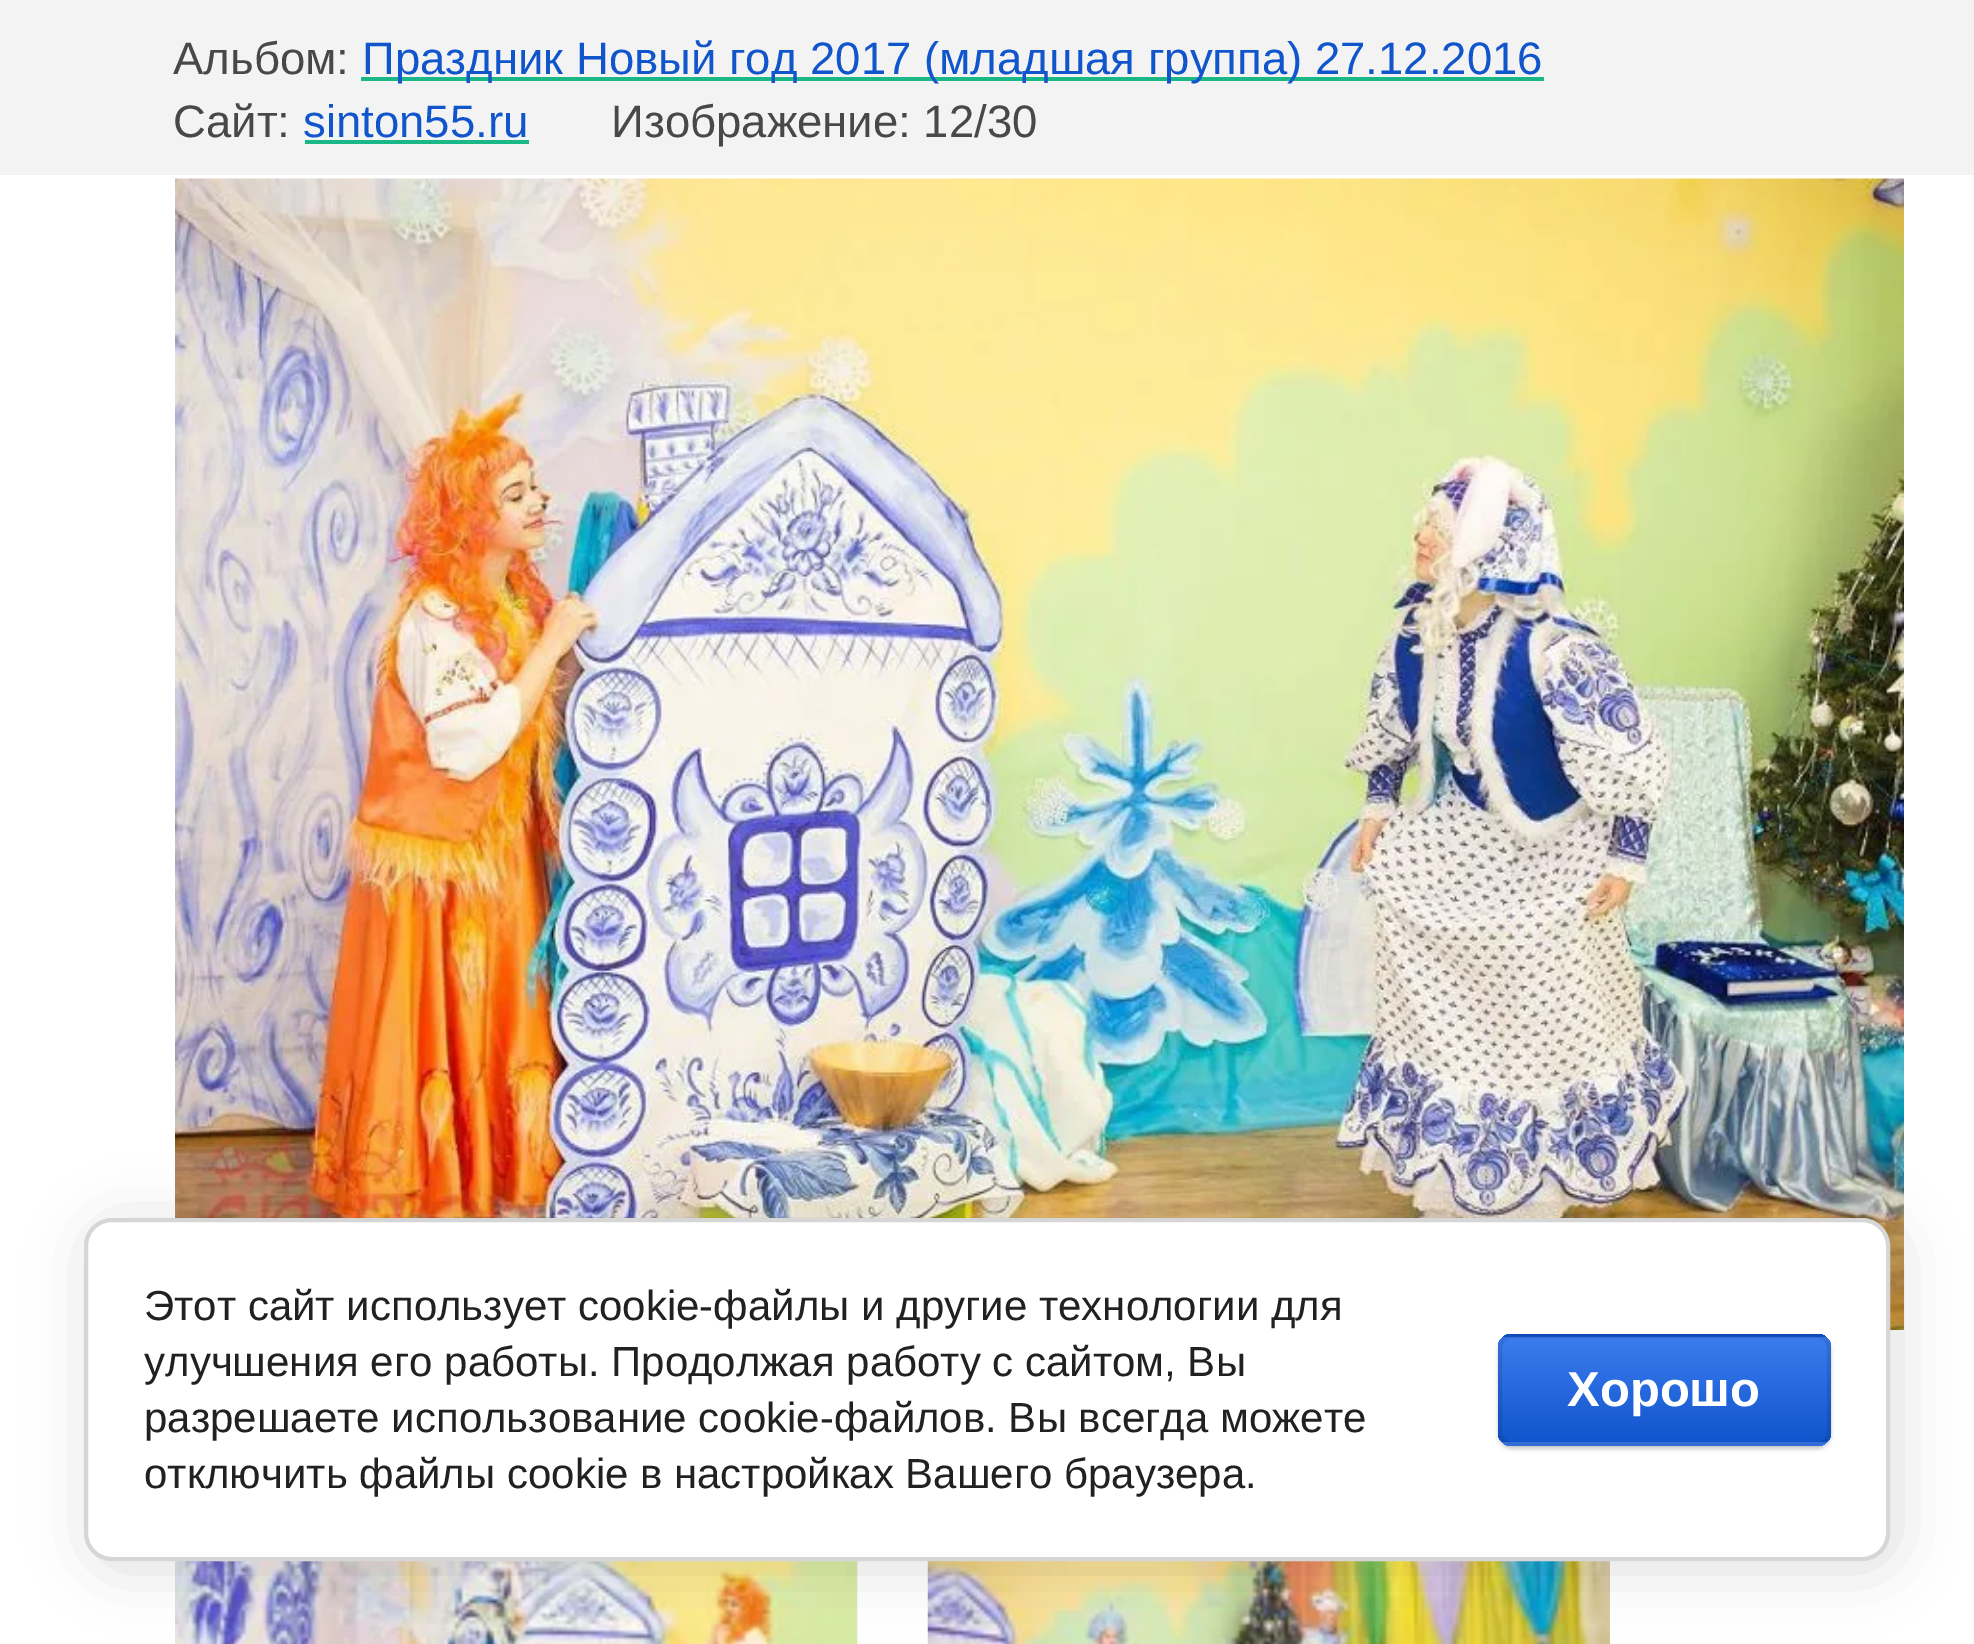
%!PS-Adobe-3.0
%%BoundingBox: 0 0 1974 1644
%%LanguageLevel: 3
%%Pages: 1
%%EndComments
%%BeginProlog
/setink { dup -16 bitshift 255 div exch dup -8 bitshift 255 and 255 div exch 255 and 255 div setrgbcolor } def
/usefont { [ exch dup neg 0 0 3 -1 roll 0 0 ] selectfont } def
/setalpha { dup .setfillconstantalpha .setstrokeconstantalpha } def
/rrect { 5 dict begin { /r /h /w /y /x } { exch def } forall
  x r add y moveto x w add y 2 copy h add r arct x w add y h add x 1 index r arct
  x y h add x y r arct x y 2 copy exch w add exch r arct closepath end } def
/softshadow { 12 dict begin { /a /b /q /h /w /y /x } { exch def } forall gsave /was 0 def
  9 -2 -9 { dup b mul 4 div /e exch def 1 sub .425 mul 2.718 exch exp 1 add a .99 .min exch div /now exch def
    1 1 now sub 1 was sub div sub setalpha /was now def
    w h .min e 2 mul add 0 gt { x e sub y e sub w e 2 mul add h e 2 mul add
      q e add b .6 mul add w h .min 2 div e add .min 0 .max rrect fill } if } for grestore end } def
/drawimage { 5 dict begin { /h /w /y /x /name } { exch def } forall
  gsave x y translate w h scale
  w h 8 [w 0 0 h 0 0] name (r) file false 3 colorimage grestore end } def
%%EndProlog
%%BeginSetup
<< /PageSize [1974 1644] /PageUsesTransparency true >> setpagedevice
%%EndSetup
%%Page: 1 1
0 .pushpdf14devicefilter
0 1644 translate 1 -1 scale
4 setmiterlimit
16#FFFFFF setink
0 0 1974 1644 rectfill
16#F3F3F3 setink
0 0 1974 175 rectfill
/LiberationSans-Regular 45.5 usefont
16#484848 setink
173 74 moveto (Альбом:) show
16#1AB887 setink
361 77 1183 4 rectfill
16#1155CC setink
362 74 moveto (Праздник Новый год 2017 \(младшая группа\) 27.12.2016) show
16#484848 setink
173 137 moveto (Сайт:) show
16#1155CC setink
303 137 moveto (sinton55.ru) show
16#1AB887 setink
305 140 224 4 rectfill
16#484848 setink
611 137 moveto (Изображение: 12/30) show
(img1.raw) 175 178 1729 1152 drawimage
(img2.raw) 175 1561 683 83 drawimage
(img3.raw) 927 1561 683 83 drawimage
16#000000 setink
91 1225 1806 343 28 31.5 0.14 softshadow
16#FFFFFF setink
86 1220 1802 339 26 rrect gsave fill grestore
16#D6D6D6 setink
4 setlinewidth
stroke
/LiberationSans-Regular 42 usefont
16#212121 setink
[
    [(Этот сайт использует cookie-файлы и другие технологии для) 144 1320]
    [(улучшения его работы. Продолжая работу с сайтом, Вы) 144 1376]
    [(разрешаете использование cookie-файлов. Вы всегда можете) 144 1432]
    [(отключить файлы cookie в настройках Вашего браузера.) 144 1488]
] { aload pop moveto show } forall
16#000000 setink
1498 1337 333 112 14 2 0.2 softshadow
gsave
1498 1334 333 112 14 rrect clip newpath
gsave 1498 1334 moveto 1831 1334 lineto 1831 1337 lineto 1498 1337 lineto closepath clip newpath
<< /ShadingType 2 /ColorSpace /DeviceRGB /Coords [1664 1232 1664 1337] /Extend [true true] /Function << /FunctionType 2 /Domain [0 1] /C0 [0.231 0.486 0.937] /C1 [0.067 0.333 0.8] /N 1 >> >> shfill grestore
gsave 1498 1337 moveto 1831 1337 lineto 1831 1442 lineto 1498 1442 lineto closepath clip newpath
<< /ShadingType 2 /ColorSpace /DeviceRGB /Coords [1664 1337 1664 1442] /Extend [true true] /Function << /FunctionType 2 /Domain [0 1] /C0 [0.231 0.486 0.937] /C1 [0.067 0.333 0.8] /N 1 >> >> shfill grestore
gsave 1498 1442 moveto 1831 1442 lineto 1831 1446 lineto 1498 1446 lineto closepath clip newpath
<< /ShadingType 2 /ColorSpace /DeviceRGB /Coords [1664 1442 1664 1547] /Extend [true true] /Function << /FunctionType 2 /Domain [0 1] /C0 [0.231 0.486 0.937] /C1 [0.067 0.333 0.8] /N 1 >> >> shfill grestore
grestore
0.1 setalpha
1500 1336 329 108 12 rrect stroke
/LiberationSans-Bold 49 usefont
1 setalpha
16#FFFFFF setink
1567 1406 moveto (Хорошо) show
.poppdf14devicefilter showpage
%%EOF
